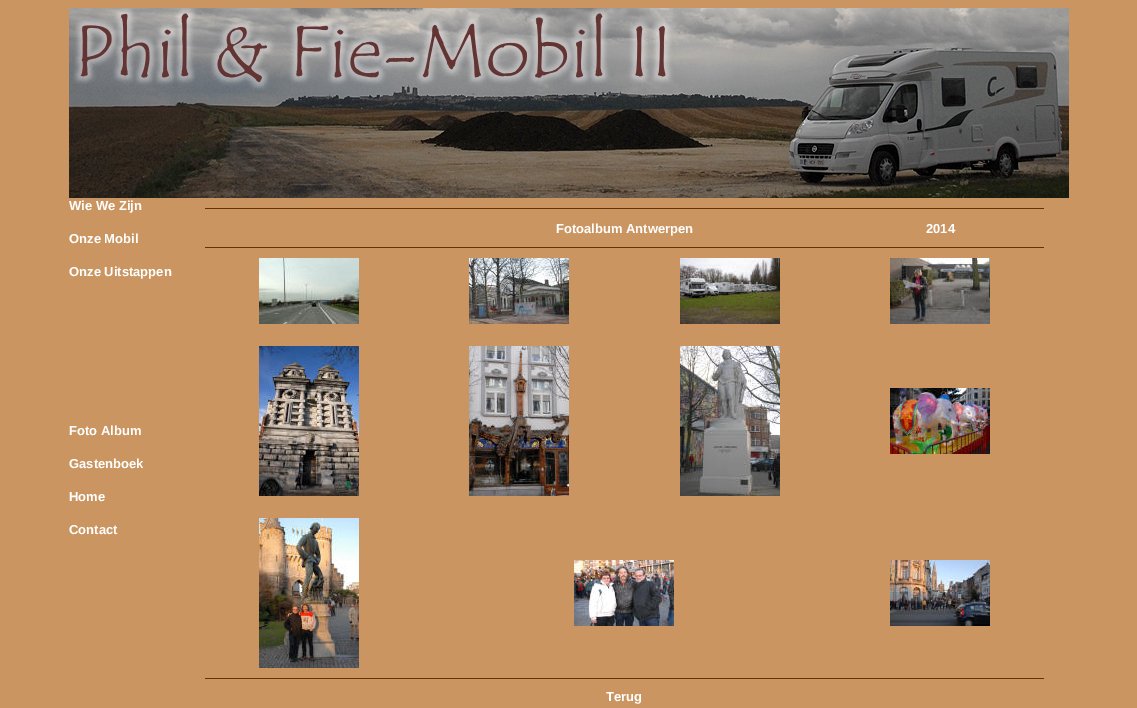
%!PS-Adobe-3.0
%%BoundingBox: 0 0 1137 708
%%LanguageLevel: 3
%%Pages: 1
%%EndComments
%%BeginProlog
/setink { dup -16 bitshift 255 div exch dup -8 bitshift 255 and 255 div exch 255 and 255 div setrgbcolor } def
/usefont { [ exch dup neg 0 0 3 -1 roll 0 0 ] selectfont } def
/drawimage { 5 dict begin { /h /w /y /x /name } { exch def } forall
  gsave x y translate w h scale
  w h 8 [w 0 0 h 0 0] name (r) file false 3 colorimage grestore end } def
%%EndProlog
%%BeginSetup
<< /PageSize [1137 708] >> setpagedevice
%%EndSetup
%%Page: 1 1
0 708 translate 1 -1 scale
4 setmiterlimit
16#CA9560 setink
0 0 1137 708 rectfill
(img1.raw) 69 8 1000 190 drawimage
/LiberationSans-Bold 13 usefont
16#FFFFFF setink
[
    [(Wie We Zijn) 69 210]
    [(Onze Mobil) 69 243]
    [(Onze Uitstappen) 69 276]
    [(Foto Album) 69 435]
    [(Gastenboek) 69 468]
    [(Home) 69 501]
    [(Contact) 69 534]
] { aload pop moveto show } forall
16#663300 setink
205 208 839 1 rectfill
16#FFFFFF setink
556 233 moveto (Fotoalbum Antwerpen) show
926 233 moveto (2014) show
16#663300 setink
205 247 839 1 rectfill
(img2.raw) 259 258 100 66 drawimage
(img3.raw) 469 258 100 66 drawimage
(img4.raw) 680 258 100 66 drawimage
(img5.raw) 890 258 100 66 drawimage
(img6.raw) 259 346 100 150 drawimage
(img7.raw) 469 346 100 150 drawimage
(img8.raw) 680 346 100 150 drawimage
(img9.raw) 890 388 100 66 drawimage
(img10.raw) 259 518 100 150 drawimage
(img11.raw) 574 560 100 66 drawimage
(img12.raw) 890 560 100 66 drawimage
205 678 839 1 rectfill
16#FFFFFF setink
606 701 moveto (Terug) show
showpage
%%EOF
